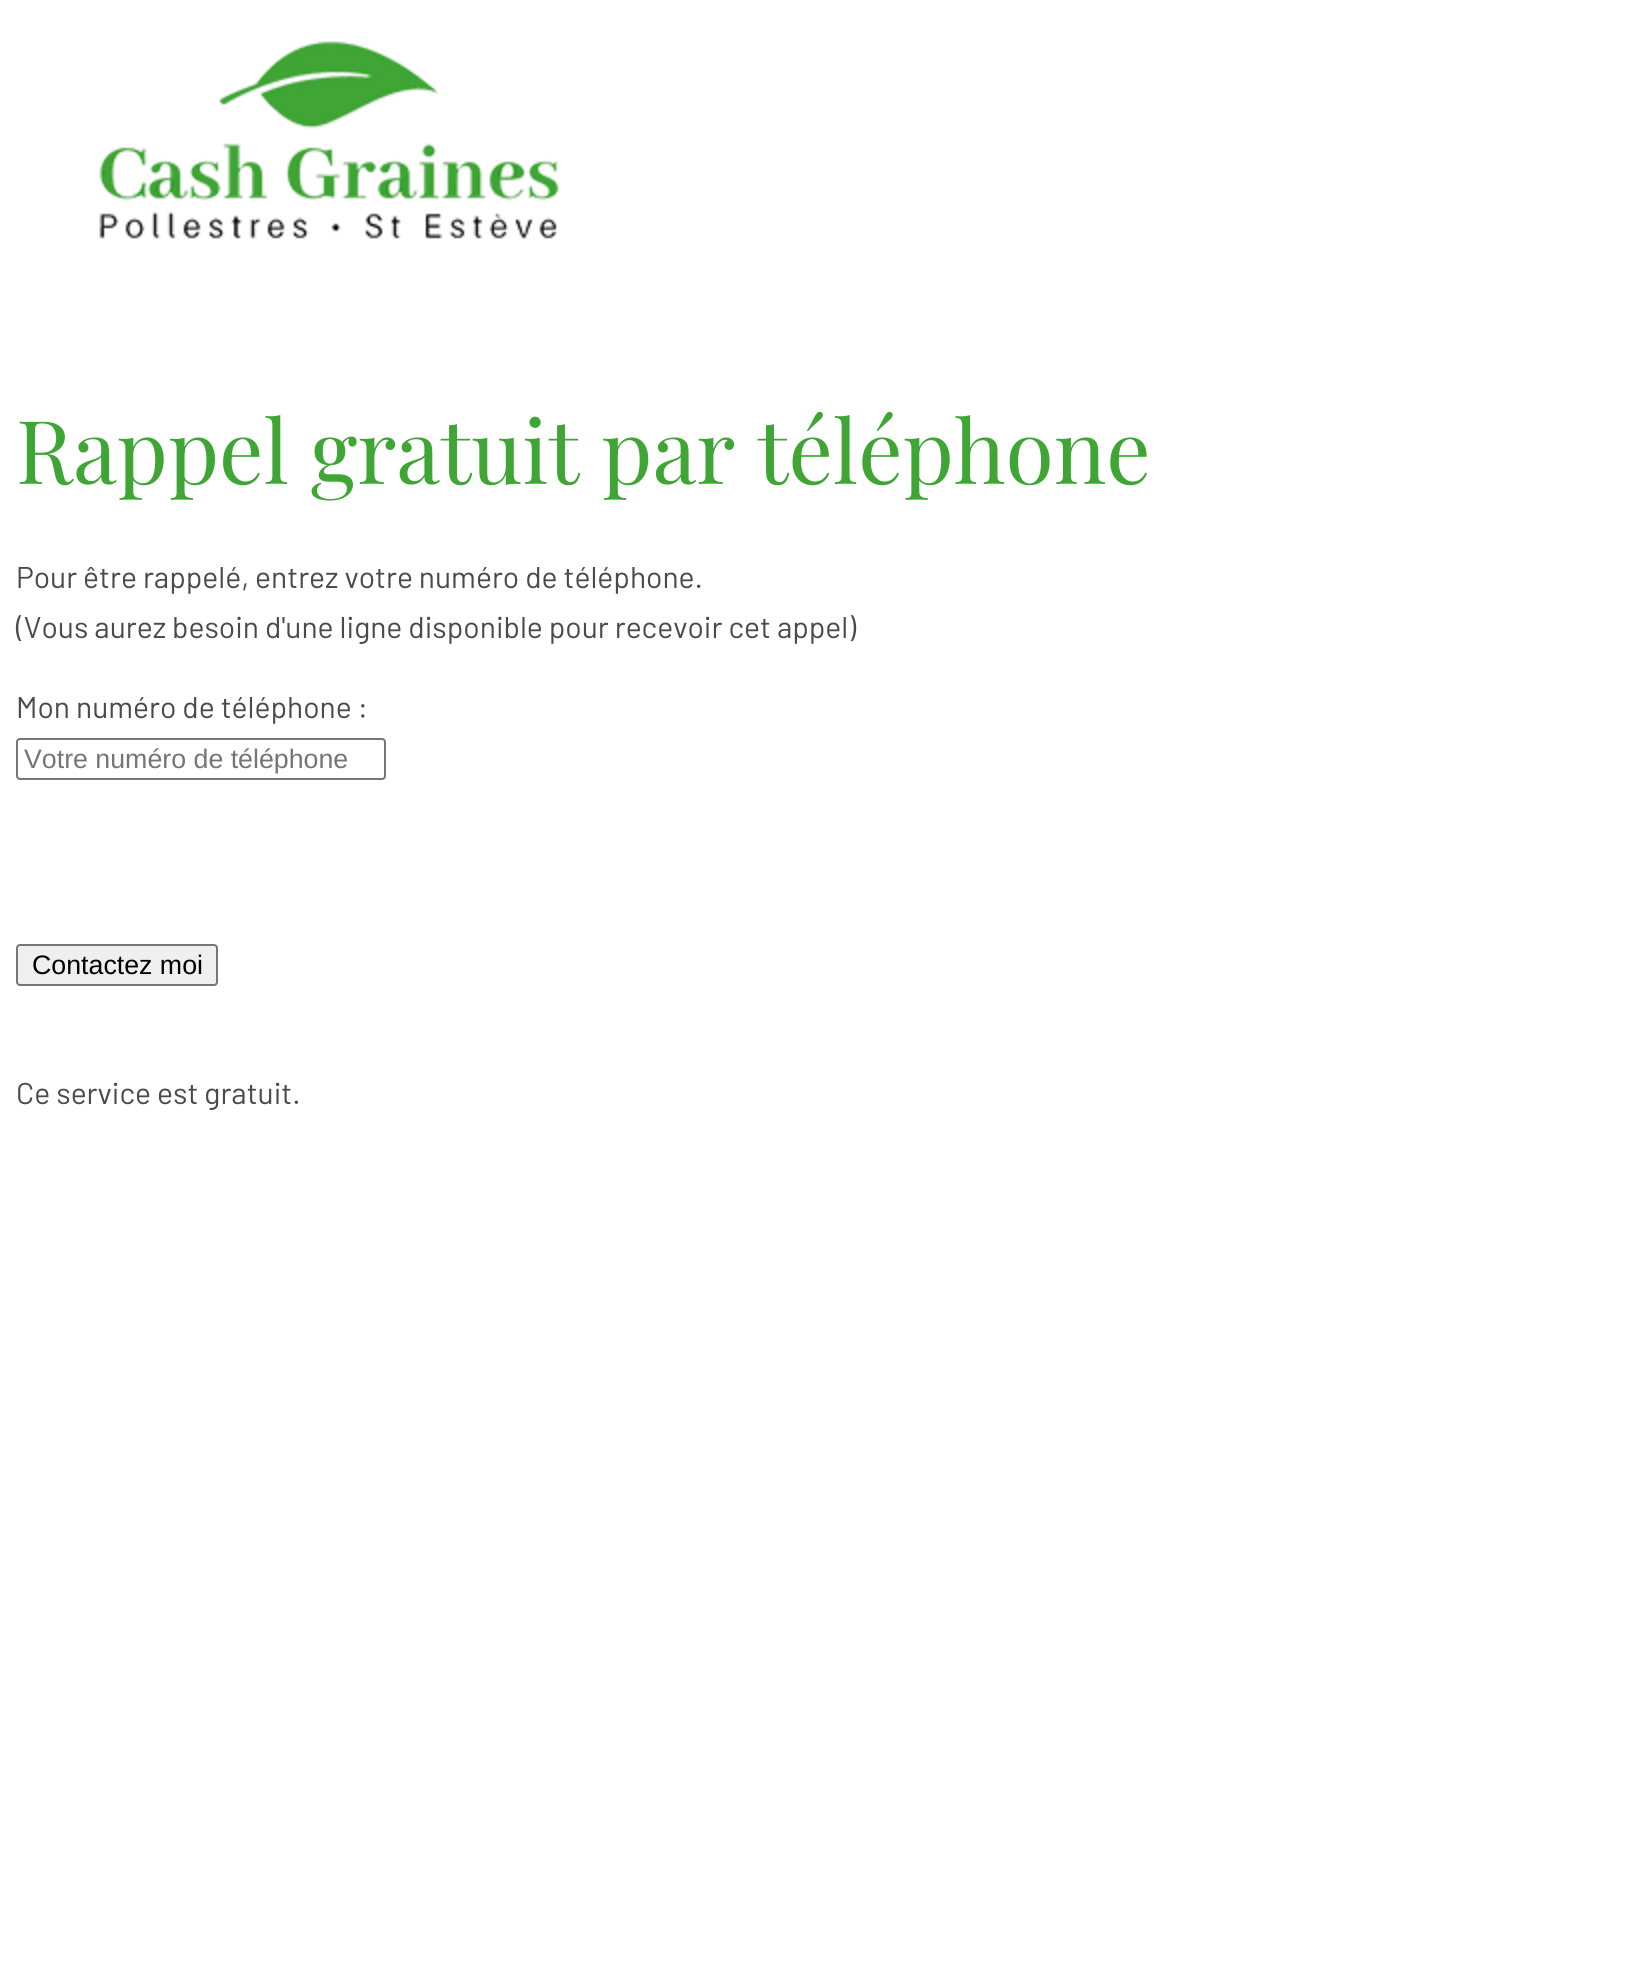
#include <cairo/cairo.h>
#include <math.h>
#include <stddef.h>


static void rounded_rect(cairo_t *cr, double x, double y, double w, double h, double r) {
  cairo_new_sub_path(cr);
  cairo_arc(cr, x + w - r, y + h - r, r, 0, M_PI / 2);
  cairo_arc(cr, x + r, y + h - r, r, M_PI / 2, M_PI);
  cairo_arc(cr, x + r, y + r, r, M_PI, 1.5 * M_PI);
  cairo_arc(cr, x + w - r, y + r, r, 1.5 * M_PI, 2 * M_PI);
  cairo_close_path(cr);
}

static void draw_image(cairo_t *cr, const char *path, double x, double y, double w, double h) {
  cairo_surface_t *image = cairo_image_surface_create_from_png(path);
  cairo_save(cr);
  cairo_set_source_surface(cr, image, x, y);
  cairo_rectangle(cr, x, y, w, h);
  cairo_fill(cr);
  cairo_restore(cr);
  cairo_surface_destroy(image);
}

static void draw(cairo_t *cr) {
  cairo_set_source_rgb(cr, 1, 1, 1);
  cairo_paint(cr);
  draw_image(cr, "images/1.png", 99, 41, 460, 198);
  rounded_rect(cr, 17, 739, 368, 40, 3);
  cairo_set_source_rgb(cr, 118 / 255.0, 118 / 255.0, 118 / 255.0);
  cairo_stroke(cr);
  cairo_set_source_rgb(cr, 239 / 255.0, 239 / 255.0, 239 / 255.0);
  rounded_rect(cr, 17, 945, 200, 40, 3);
  cairo_fill_preserve(cr);
  cairo_set_source_rgb(cr, 118 / 255.0, 118 / 255.0, 118 / 255.0);
  cairo_stroke(cr);
  cairo_select_font_face(cr, "Playfair Display", CAIRO_FONT_SLANT_NORMAL, CAIRO_FONT_WEIGHT_NORMAL);
  cairo_set_font_size(cr, 88);
  cairo_set_source_rgb(cr, 63 / 255.0, 165 / 255.0, 53 / 255.0);
  cairo_move_to(cr, 16, 484);
  cairo_show_text(cr, "Rappel gratuit par téléphone");
  cairo_select_font_face(cr, "Barlow", CAIRO_FONT_SLANT_NORMAL, CAIRO_FONT_WEIGHT_NORMAL);
  cairo_set_font_size(cr, 30);
  cairo_set_source_rgb(cr, 75 / 255.0, 74 / 255.0, 74 / 255.0);
  cairo_move_to(cr, 16, 588);
  cairo_show_text(cr, "Pour être rappelé, entrez votre numéro de téléphone.");
  cairo_move_to(cr, 16, 638);
  cairo_show_text(cr, "(Vous aurez besoin d'une ligne disponible pour recevoir cet appel)");
  cairo_move_to(cr, 16, 718);
  cairo_show_text(cr, "Mon numéro de téléphone :");
  cairo_select_font_face(cr, "Liberation Sans", CAIRO_FONT_SLANT_NORMAL, CAIRO_FONT_WEIGHT_NORMAL);
  cairo_set_font_size(cr, 26.75);
  cairo_set_source_rgb(cr, 117 / 255.0, 117 / 255.0, 117 / 255.0);
  cairo_move_to(cr, 24, 768);
  cairo_show_text(cr, "Votre numéro de téléphone");
  cairo_set_source_rgb(cr, 0, 0, 0);
  cairo_move_to(cr, 32, 974);
  cairo_show_text(cr, "Contactez moi");
  cairo_select_font_face(cr, "Barlow", CAIRO_FONT_SLANT_NORMAL, CAIRO_FONT_WEIGHT_NORMAL);
  cairo_set_font_size(cr, 30);
  cairo_set_source_rgb(cr, 75 / 255.0, 74 / 255.0, 74 / 255.0);
  cairo_move_to(cr, 16, 1104);
  cairo_show_text(cr, "Ce service est gratuit.");
}

int main(void) {
  cairo_surface_t *surface = cairo_image_surface_create(CAIRO_FORMAT_RGB24, 1639, 1980);
  cairo_t *cr = cairo_create(surface);
  cairo_font_options_t *options = cairo_font_options_create();
  cairo_font_options_set_hint_metrics(options, CAIRO_HINT_METRICS_OFF);
  cairo_font_options_set_hint_style(options, CAIRO_HINT_STYLE_NONE);
  cairo_set_font_options(cr, options);
  cairo_set_miter_limit(cr, 4);
  draw(cr);
  cairo_surface_write_to_png(surface, "out.png");
  cairo_font_options_destroy(options);
  cairo_destroy(cr);
  cairo_surface_destroy(surface);
  return 0;
}
